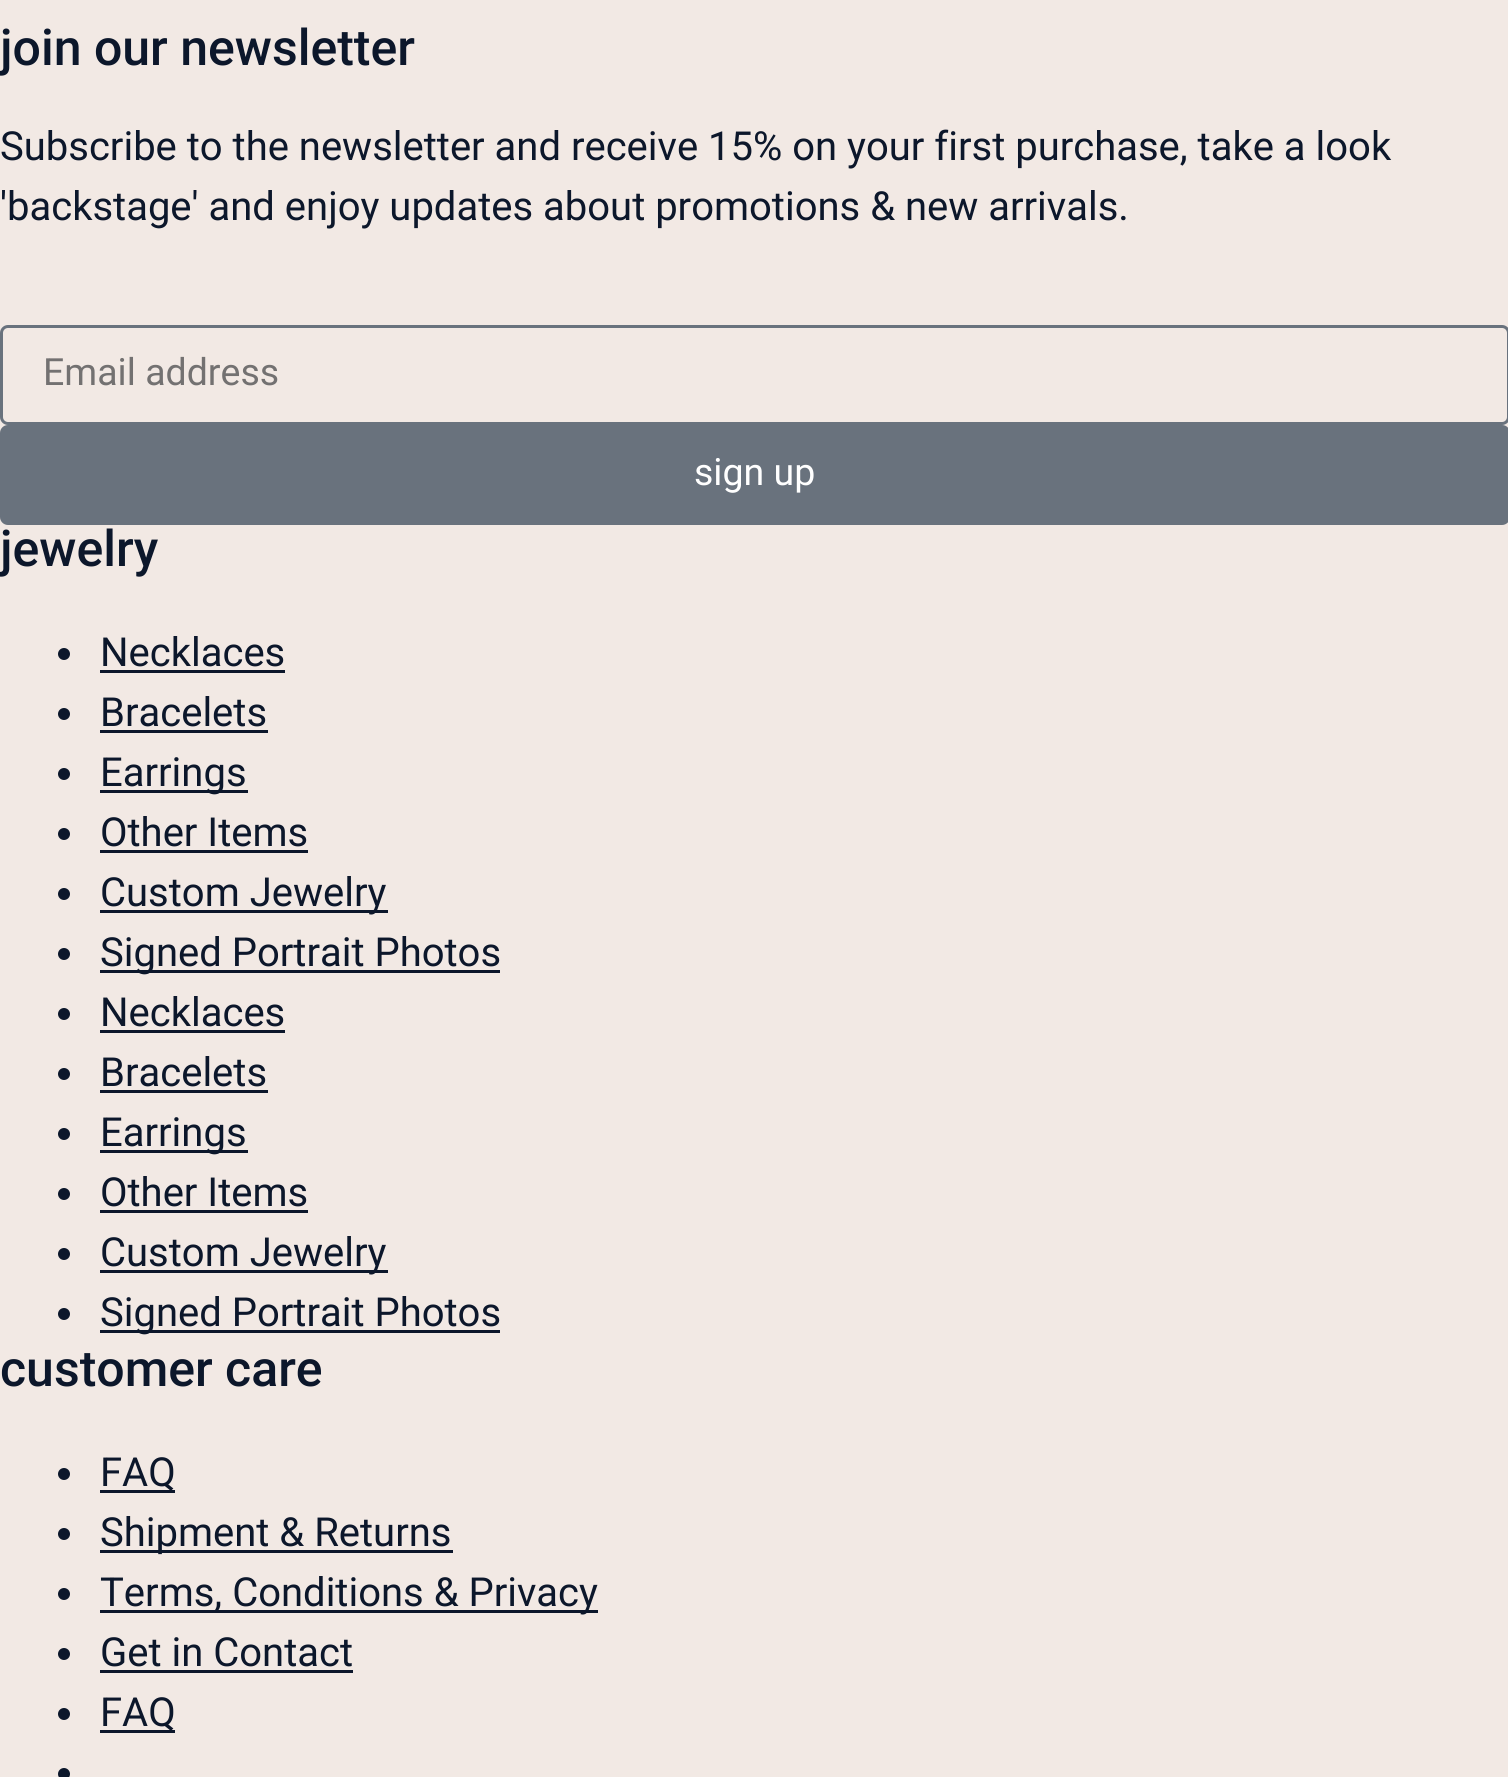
#include <cairo/cairo.h>
#include <math.h>
#include <stddef.h>


static void rounded_rect(cairo_t *cr, double x, double y, double w, double h, double r) {
  cairo_new_sub_path(cr);
  cairo_arc(cr, x + w - r, y + h - r, r, 0, M_PI / 2);
  cairo_arc(cr, x + r, y + h - r, r, M_PI / 2, M_PI);
  cairo_arc(cr, x + r, y + r, r, M_PI, 1.5 * M_PI);
  cairo_arc(cr, x + w - r, y + r, r, 1.5 * M_PI, 2 * M_PI);
  cairo_close_path(cr);
}

static void draw(cairo_t *cr) {
  cairo_set_source_rgb(cr, 242 / 255.0, 233 / 255.0, 228 / 255.0);
  cairo_paint(cr);
  rounded_rect(cr, 1.5, 326.5, 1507, 97, 6.5);
  cairo_set_source_rgb(cr, 105 / 255.0, 114 / 255.0, 125 / 255.0);
  cairo_set_line_width(cr, 3);
  cairo_stroke(cr);
  rounded_rect(cr, 0, 425, 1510, 100, 8);
  cairo_fill(cr);
  cairo_set_source_rgb(cr, 12 / 255.0, 23 / 255.0, 43 / 255.0);
  cairo_arc(cr, 64, 654, 6, 0, 2 * M_PI);
  cairo_fill(cr);
  cairo_rectangle(cr, 100, 670, 185, 3);
  cairo_fill(cr);
  cairo_arc(cr, 64, 714, 6, 0, 2 * M_PI);
  cairo_fill(cr);
  cairo_rectangle(cr, 100, 730, 168, 3);
  cairo_fill(cr);
  cairo_arc(cr, 64, 774, 6, 0, 2 * M_PI);
  cairo_fill(cr);
  cairo_rectangle(cr, 100, 790, 148, 3);
  cairo_fill(cr);
  cairo_arc(cr, 64, 834, 6, 0, 2 * M_PI);
  cairo_fill(cr);
  cairo_rectangle(cr, 100, 850, 208, 3);
  cairo_fill(cr);
  cairo_arc(cr, 64, 894, 6, 0, 2 * M_PI);
  cairo_fill(cr);
  cairo_rectangle(cr, 100, 910, 288, 3);
  cairo_fill(cr);
  cairo_arc(cr, 64, 954, 6, 0, 2 * M_PI);
  cairo_fill(cr);
  cairo_rectangle(cr, 100, 970, 400, 3);
  cairo_fill(cr);
  cairo_arc(cr, 64, 1014, 6, 0, 2 * M_PI);
  cairo_fill(cr);
  cairo_rectangle(cr, 100, 1030, 185, 3);
  cairo_fill(cr);
  cairo_arc(cr, 64, 1074, 6, 0, 2 * M_PI);
  cairo_fill(cr);
  cairo_rectangle(cr, 100, 1090, 168, 3);
  cairo_fill(cr);
  cairo_arc(cr, 64, 1134, 6, 0, 2 * M_PI);
  cairo_fill(cr);
  cairo_rectangle(cr, 100, 1150, 148, 3);
  cairo_fill(cr);
  cairo_arc(cr, 64, 1194, 6, 0, 2 * M_PI);
  cairo_fill(cr);
  cairo_rectangle(cr, 100, 1210, 208, 3);
  cairo_fill(cr);
  cairo_arc(cr, 64, 1254, 6, 0, 2 * M_PI);
  cairo_fill(cr);
  cairo_rectangle(cr, 100, 1270, 288, 3);
  cairo_fill(cr);
  cairo_arc(cr, 64, 1314, 6, 0, 2 * M_PI);
  cairo_fill(cr);
  cairo_rectangle(cr, 100, 1330, 400, 3);
  cairo_fill(cr);
  cairo_arc(cr, 64, 1474, 6, 0, 2 * M_PI);
  cairo_fill(cr);
  cairo_rectangle(cr, 100, 1490, 75, 3);
  cairo_fill(cr);
  cairo_arc(cr, 64, 1534, 6, 0, 2 * M_PI);
  cairo_fill(cr);
  cairo_rectangle(cr, 100, 1550, 353, 3);
  cairo_fill(cr);
  cairo_arc(cr, 64, 1594, 6, 0, 2 * M_PI);
  cairo_fill(cr);
  cairo_rectangle(cr, 100, 1610, 498, 3);
  cairo_fill(cr);
  cairo_arc(cr, 64, 1654, 6, 0, 2 * M_PI);
  cairo_fill(cr);
  cairo_rectangle(cr, 100, 1670, 253, 3);
  cairo_fill(cr);
  cairo_arc(cr, 64, 1714, 6, 0, 2 * M_PI);
  cairo_fill(cr);
  cairo_rectangle(cr, 100, 1730, 75, 3);
  cairo_fill(cr);
  cairo_arc(cr, 64, 1774, 6, 0, 2 * M_PI);
  cairo_fill(cr);
  cairo_select_font_face(cr, "Roboto Medium", CAIRO_FONT_SLANT_NORMAL, CAIRO_FONT_WEIGHT_NORMAL);
  cairo_set_font_size(cr, 50);
  cairo_move_to(cr, 0, 65);
  cairo_show_text(cr, "join our newsletter");
  cairo_select_font_face(cr, "Roboto", CAIRO_FONT_SLANT_NORMAL, CAIRO_FONT_WEIGHT_NORMAL);
  cairo_set_font_size(cr, 40);
  cairo_move_to(cr, 0, 160);
  cairo_show_text(cr, "Subscribe to the newsletter and receive 15% on your first purchase, take a look");
  cairo_move_to(cr, 0, 220);
  cairo_show_text(cr, "'backstage' and enjoy updates about promotions & new arrivals.");
  cairo_set_font_size(cr, 37.5);
  cairo_set_source_rgb(cr, 115 / 255.0, 113 / 255.0, 113 / 255.0);
  cairo_move_to(cr, 43, 385);
  cairo_show_text(cr, "Email address");
  cairo_set_source_rgb(cr, 1, 1, 1);
  cairo_move_to(cr, 694, 485);
  cairo_show_text(cr, "sign up");
  cairo_select_font_face(cr, "Roboto Medium", CAIRO_FONT_SLANT_NORMAL, CAIRO_FONT_WEIGHT_NORMAL);
  cairo_set_font_size(cr, 50);
  cairo_set_source_rgb(cr, 12 / 255.0, 23 / 255.0, 43 / 255.0);
  cairo_move_to(cr, 0, 566);
  cairo_show_text(cr, "jewelry");
  cairo_select_font_face(cr, "Roboto", CAIRO_FONT_SLANT_NORMAL, CAIRO_FONT_WEIGHT_NORMAL);
  cairo_set_font_size(cr, 40);
  cairo_move_to(cr, 100, 666);
  cairo_show_text(cr, "Necklaces");
  cairo_move_to(cr, 100, 726);
  cairo_show_text(cr, "Bracelets");
  cairo_move_to(cr, 100, 786);
  cairo_show_text(cr, "Earrings");
  cairo_move_to(cr, 100, 846);
  cairo_show_text(cr, "Other Items");
  cairo_move_to(cr, 100, 906);
  cairo_show_text(cr, "Custom Jewelry");
  cairo_move_to(cr, 100, 966);
  cairo_show_text(cr, "Signed Portrait Photos");
  cairo_move_to(cr, 100, 1026);
  cairo_show_text(cr, "Necklaces");
  cairo_move_to(cr, 100, 1086);
  cairo_show_text(cr, "Bracelets");
  cairo_move_to(cr, 100, 1146);
  cairo_show_text(cr, "Earrings");
  cairo_move_to(cr, 100, 1206);
  cairo_show_text(cr, "Other Items");
  cairo_move_to(cr, 100, 1266);
  cairo_show_text(cr, "Custom Jewelry");
  cairo_move_to(cr, 100, 1326);
  cairo_show_text(cr, "Signed Portrait Photos");
  cairo_select_font_face(cr, "Roboto Medium", CAIRO_FONT_SLANT_NORMAL, CAIRO_FONT_WEIGHT_NORMAL);
  cairo_set_font_size(cr, 50);
  cairo_move_to(cr, 0, 1386);
  cairo_show_text(cr, "customer care");
  cairo_select_font_face(cr, "Roboto", CAIRO_FONT_SLANT_NORMAL, CAIRO_FONT_WEIGHT_NORMAL);
  cairo_set_font_size(cr, 40);
  cairo_move_to(cr, 100, 1486);
  cairo_show_text(cr, "FAQ");
  cairo_move_to(cr, 100, 1546);
  cairo_show_text(cr, "Shipment & Returns");
  cairo_move_to(cr, 100, 1606);
  cairo_show_text(cr, "Terms, Conditions & Privacy");
  cairo_move_to(cr, 100, 1666);
  cairo_show_text(cr, "Get in Contact");
  cairo_move_to(cr, 100, 1726);
  cairo_show_text(cr, "FAQ");
}

int main(void) {
  cairo_surface_t *surface = cairo_image_surface_create(CAIRO_FORMAT_RGB24, 1508, 1777);
  cairo_t *cr = cairo_create(surface);
  cairo_font_options_t *options = cairo_font_options_create();
  cairo_font_options_set_hint_metrics(options, CAIRO_HINT_METRICS_OFF);
  cairo_font_options_set_hint_style(options, CAIRO_HINT_STYLE_NONE);
  cairo_set_font_options(cr, options);
  cairo_set_miter_limit(cr, 4);
  draw(cr);
  cairo_surface_write_to_png(surface, "out.png");
  cairo_font_options_destroy(options);
  cairo_destroy(cr);
  cairo_surface_destroy(surface);
  return 0;
}
